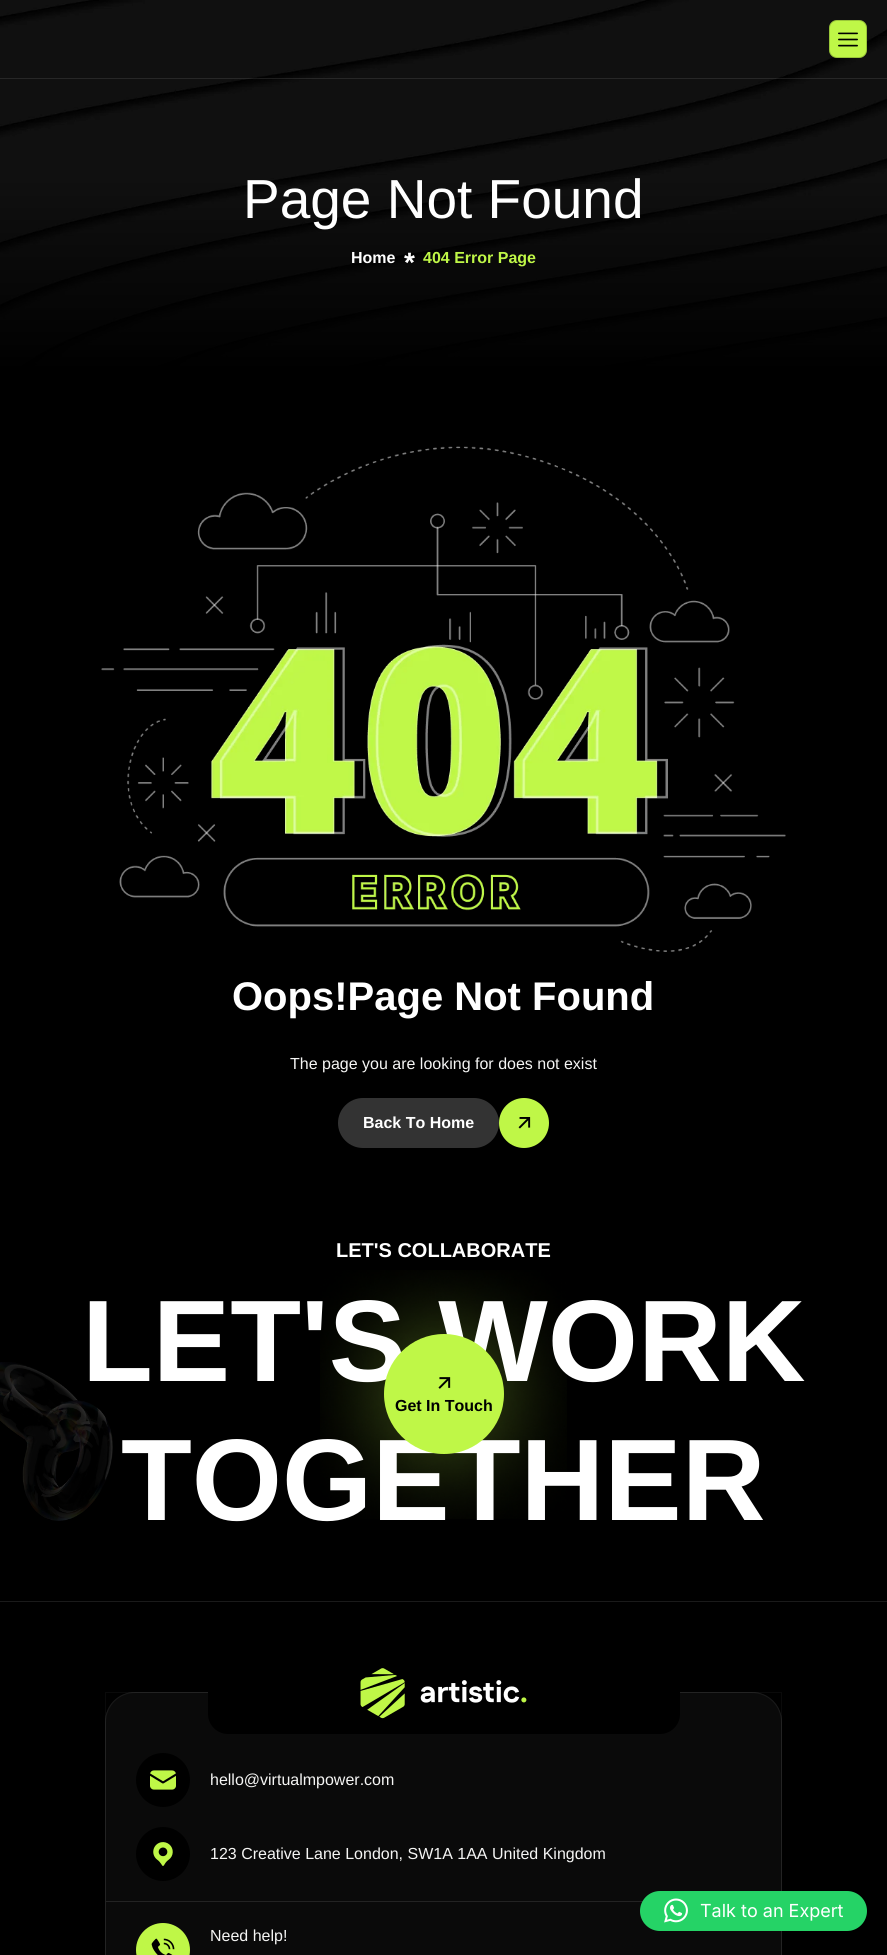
#include <cairo/cairo.h>
#include <math.h>
#include <stddef.h>


static void rounded_rect(cairo_t *cr, double x, double y, double w, double h, double r) {
  cairo_new_sub_path(cr);
  cairo_arc(cr, x + w - r, y + h - r, r, 0, M_PI / 2);
  cairo_arc(cr, x + r, y + h - r, r, M_PI / 2, M_PI);
  cairo_arc(cr, x + r, y + r, r, M_PI, 1.5 * M_PI);
  cairo_arc(cr, x + w - r, y + r, r, 1.5 * M_PI, 2 * M_PI);
  cairo_close_path(cr);
}

static void draw_image(cairo_t *cr, const char *path, double x, double y, double w, double h) {
  cairo_surface_t *image = cairo_image_surface_create_from_png(path);
  cairo_save(cr);
  cairo_set_source_surface(cr, image, x, y);
  cairo_rectangle(cr, x, y, w, h);
  cairo_fill(cr);
  cairo_restore(cr);
  cairo_surface_destroy(image);
}

static void draw(cairo_t *cr) {
  cairo_set_source_rgb(cr, 0, 0, 0);
  cairo_paint(cr);
  draw_image(cr, "images/2.png", 0, 0, 887, 366);
  cairo_set_source_rgba(cr, 1, 1, 1, 0.1);
  cairo_rectangle(cr, 0, 78, 887, 1);
  cairo_fill(cr);
  cairo_set_source_rgb(cr, 191 / 255.0, 247 / 255.0, 71 / 255.0);
  rounded_rect(cr, 829, 20, 38, 38, 8);
  cairo_fill(cr);
  rounded_rect(cr, 829.5, 20.5, 37, 37, 7.5);
  cairo_set_source_rgba(cr, 0, 0, 0, 0.2);
  cairo_set_line_width(cr, 1);
  cairo_stroke(cr);
  draw_image(cr, "images/1.png", 838, 32, 20, 15);
  draw_image(cr, "images/3.png", 101, 446, 685, 506);
  cairo_set_source_rgb(cr, 191 / 255.0, 247 / 255.0, 71 / 255.0);
  cairo_arc(cr, 524, 1123, 25, 0, 2 * M_PI);
  cairo_fill(cr);
  draw_image(cr, "images/4.png", 518, 1117, 13, 12);
  draw_image(cr, "images/5.png", 0, 1362, 113, 159);
  draw_image(cr, "images/6.png", 320, 1270, 247, 249);
  cairo_set_source_rgb(cr, 26 / 255.0, 26 / 255.0, 26 / 255.0);
  cairo_rectangle(cr, 0, 1601, 887, 1);
  cairo_fill(cr);
  rounded_rect(cr, 105.5, 1692.5, 676, 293, 29.5);
  cairo_stroke(cr);
  cairo_set_source_rgba(cr, 27 / 255.0, 27 / 255.0, 27 / 255.0, 0.4);
  rounded_rect(cr, 105, 1692, 677, 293, 30);
  cairo_fill(cr);
  cairo_rectangle(cr, 105.5, 1692.5, 676, 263);
  cairo_set_source_rgba(cr, 1, 1, 1, 0.04);
  cairo_stroke(cr);
  cairo_set_source_rgb(cr, 0, 0, 0);
  rounded_rect(cr, 208, 1653, 472, 81, 20);
  cairo_fill(cr);
  draw_image(cr, "images/8.png", 360, 1668, 167, 51);
  cairo_arc(cr, 163, 1780, 27, 0, 2 * M_PI);
  cairo_fill(cr);
  draw_image(cr, "images/9.png", 150, 1770, 26, 20);
  cairo_arc(cr, 163, 1854, 27, 0, 2 * M_PI);
  cairo_fill(cr);
  draw_image(cr, "images/10.png", 153, 1842, 20, 24);
  cairo_set_source_rgb(cr, 35 / 255.0, 35 / 255.0, 35 / 255.0);
  cairo_rectangle(cr, 106, 1901, 537, 1);
  cairo_fill(cr);
  cairo_set_source_rgb(cr, 191 / 255.0, 247 / 255.0, 71 / 255.0);
  cairo_arc(cr, 163, 1950, 27, 0, 2 * M_PI);
  cairo_fill(cr);
  draw_image(cr, "images/11.png", 151, 1938, 24, 17);
  cairo_set_source_rgb(cr, 37 / 255.0, 211 / 255.0, 102 / 255.0);
  rounded_rect(cr, 640, 1891, 227, 40, 20);
  cairo_fill(cr);
  draw_image(cr, "images/12.png", 664, 1898, 24, 25);
  cairo_select_font_face(cr, "Liberation Sans", CAIRO_FONT_SLANT_NORMAL, CAIRO_FONT_WEIGHT_NORMAL);
  cairo_set_font_size(cr, 55);
  cairo_set_source_rgb(cr, 1, 1, 1);
  cairo_move_to(cr, 243, 218);
  cairo_show_text(cr, "Page Not Found");
  cairo_select_font_face(cr, "Liberation Sans", CAIRO_FONT_SLANT_NORMAL, CAIRO_FONT_WEIGHT_BOLD);
  cairo_set_font_size(cr, 16);
  cairo_move_to(cr, 351, 263);
  cairo_show_text(cr, "Home");
  cairo_set_font_size(cr, 28);
  cairo_move_to(cr, 404, 272);
  cairo_show_text(cr, "*");
  cairo_set_font_size(cr, 16);
  cairo_set_source_rgb(cr, 191 / 255.0, 247 / 255.0, 71 / 255.0);
  cairo_move_to(cr, 423, 263);
  cairo_show_text(cr, "404 Error Page");
  cairo_set_font_size(cr, 40);
  cairo_set_source_rgb(cr, 1, 1, 1);
  cairo_move_to(cr, 232, 1010);
  cairo_show_text(cr, "Oops!Page Not Found");
  cairo_select_font_face(cr, "Liberation Sans", CAIRO_FONT_SLANT_NORMAL, CAIRO_FONT_WEIGHT_NORMAL);
  cairo_set_font_size(cr, 16);
  cairo_set_source_rgb(cr, 245 / 255.0, 245 / 255.0, 244 / 255.0);
  cairo_move_to(cr, 290, 1069);
  cairo_show_text(cr, "The page you are looking for does not exist");
  cairo_select_font_face(cr, "Liberation Sans", CAIRO_FONT_SLANT_NORMAL, CAIRO_FONT_WEIGHT_BOLD);
  cairo_set_source_rgb(cr, 1, 1, 1);
  cairo_move_to(cr, 363, 1128);
  cairo_show_text(cr, "Back To Home");
  cairo_set_source_rgba(cr, 1, 1, 1, 0.2);
  rounded_rect(cr, 338, 1098, 161, 50, 25);
  cairo_fill(cr);
  cairo_set_font_size(cr, 20);
  cairo_set_source_rgb(cr, 1, 1, 1);
  cairo_move_to(cr, 336, 1257);
  cairo_show_text(cr, "LET'S COLLABORATE");
  cairo_set_font_size(cr, 116);
  cairo_move_to(cr, 82, 1381);
  cairo_show_text(cr, "LET'S WORK");
  cairo_move_to(cr, 121, 1520);
  cairo_show_text(cr, "TOGETHER");
  cairo_set_source_rgb(cr, 191 / 255.0, 247 / 255.0, 71 / 255.0);
  cairo_new_path(cr);
  cairo_arc(cr, 444, 1394, 60, 0, 2 * M_PI);
  cairo_fill(cr);
  draw_image(cr, "images/7.png", 438, 1377, 13, 12);
  cairo_set_font_size(cr, 16);
  cairo_set_source_rgb(cr, 0, 0, 0);
  cairo_move_to(cr, 395, 1411);
  cairo_show_text(cr, "Get In Touch");
  cairo_select_font_face(cr, "Liberation Sans", CAIRO_FONT_SLANT_NORMAL, CAIRO_FONT_WEIGHT_NORMAL);
  cairo_set_source_rgb(cr, 245 / 255.0, 245 / 255.0, 244 / 255.0);
  cairo_move_to(cr, 210, 1785);
  cairo_show_text(cr, "hello@virtualmpower.com");
  cairo_move_to(cr, 210, 1859);
  cairo_show_text(cr, "123 Creative Lane London, SW1A 1AA United Kingdom");
  cairo_move_to(cr, 210, 1941);
  cairo_show_text(cr, "Need help!");
  cairo_select_font_face(cr, "Inter", CAIRO_FONT_SLANT_NORMAL, CAIRO_FONT_WEIGHT_NORMAL);
  cairo_set_font_size(cr, 18);
  cairo_set_source_rgb(cr, 1, 1, 1);
  cairo_move_to(cr, 700, 1917);
  cairo_show_text(cr, "Talk to an Expert");
}

int main(void) {
  cairo_surface_t *surface = cairo_image_surface_create(CAIRO_FORMAT_RGB24, 887, 1955);
  cairo_t *cr = cairo_create(surface);
  cairo_font_options_t *options = cairo_font_options_create();
  cairo_font_options_set_hint_metrics(options, CAIRO_HINT_METRICS_OFF);
  cairo_font_options_set_hint_style(options, CAIRO_HINT_STYLE_NONE);
  cairo_set_font_options(cr, options);
  cairo_set_miter_limit(cr, 4);
  draw(cr);
  cairo_surface_write_to_png(surface, "out.png");
  cairo_font_options_destroy(options);
  cairo_destroy(cr);
  cairo_surface_destroy(surface);
  return 0;
}
